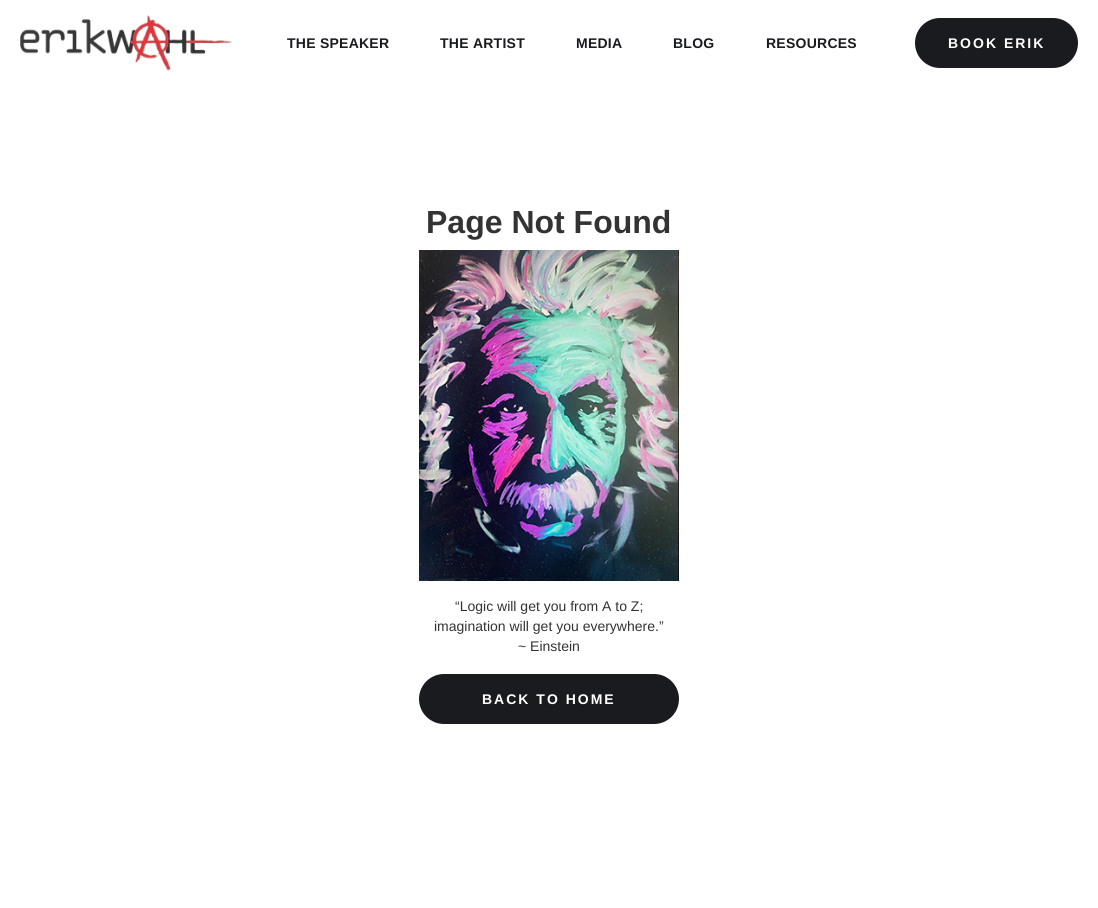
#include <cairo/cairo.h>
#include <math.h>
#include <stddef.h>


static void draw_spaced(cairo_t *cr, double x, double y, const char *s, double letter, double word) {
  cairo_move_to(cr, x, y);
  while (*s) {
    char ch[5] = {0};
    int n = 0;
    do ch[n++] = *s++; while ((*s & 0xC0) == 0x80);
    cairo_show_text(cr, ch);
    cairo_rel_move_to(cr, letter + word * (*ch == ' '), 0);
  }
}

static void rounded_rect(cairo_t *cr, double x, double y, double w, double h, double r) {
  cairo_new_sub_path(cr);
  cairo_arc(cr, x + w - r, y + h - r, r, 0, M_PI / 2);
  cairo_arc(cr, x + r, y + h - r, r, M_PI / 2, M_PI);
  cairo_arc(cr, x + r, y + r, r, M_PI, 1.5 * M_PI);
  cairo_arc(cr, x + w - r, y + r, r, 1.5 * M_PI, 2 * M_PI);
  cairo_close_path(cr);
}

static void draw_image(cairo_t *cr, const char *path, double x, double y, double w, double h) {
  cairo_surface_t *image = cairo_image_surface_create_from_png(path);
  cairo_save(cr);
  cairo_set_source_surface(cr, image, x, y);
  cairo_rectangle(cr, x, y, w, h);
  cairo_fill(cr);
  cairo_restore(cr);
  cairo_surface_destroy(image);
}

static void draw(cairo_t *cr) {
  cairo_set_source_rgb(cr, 1, 1, 1);
  cairo_paint(cr);
  draw_image(cr, "images/1.png", 20, 15, 212, 56);
  cairo_set_source_rgb(cr, 26 / 255.0, 27 / 255.0, 31 / 255.0);
  rounded_rect(cr, 915, 18, 163, 50, 25);
  cairo_fill(cr);
  draw_image(cr, "images/2.png", 419, 250, 260, 331);
  rounded_rect(cr, 419, 674, 260, 50, 25);
  cairo_fill(cr);
  cairo_select_font_face(cr, "Liberation Sans", CAIRO_FONT_SLANT_NORMAL, CAIRO_FONT_WEIGHT_BOLD);
  cairo_set_font_size(cr, 14);
  draw_spaced(cr, 287, 48, "THE SPEAKER", 0.25, 0);
  draw_spaced(cr, 440, 48, "THE ARTIST", 0.25, 0);
  draw_spaced(cr, 576, 48, "MEDIA", 0.25, 0);
  draw_spaced(cr, 673, 48, "BLOG", 0.25, 0);
  draw_spaced(cr, 766, 48, "RESOURCES", 0.25, 0);
  cairo_set_source_rgb(cr, 1, 1, 1);
  draw_spaced(cr, 948, 48, "BOOK ERIK", 2, 0);
  cairo_set_font_size(cr, 32);
  cairo_set_source_rgb(cr, 51 / 255.0, 51 / 255.0, 51 / 255.0);
  cairo_move_to(cr, 426, 233);
  cairo_show_text(cr, "Page Not Found");
  cairo_select_font_face(cr, "Liberation Sans", CAIRO_FONT_SLANT_NORMAL, CAIRO_FONT_WEIGHT_NORMAL);
  cairo_set_font_size(cr, 14);
  cairo_move_to(cr, 455, 611);
  cairo_show_text(cr, "“Logic will get you from A to Z;");
  cairo_move_to(cr, 434, 631);
  cairo_show_text(cr, "imagination will get you everywhere.”");
  cairo_move_to(cr, 518, 651);
  cairo_show_text(cr, "~ Einstein");
  cairo_select_font_face(cr, "Liberation Sans", CAIRO_FONT_SLANT_NORMAL, CAIRO_FONT_WEIGHT_BOLD);
  cairo_set_source_rgb(cr, 1, 1, 1);
  draw_spaced(cr, 482, 704, "BACK TO HOME", 2, 0);
}

int main(void) {
  cairo_surface_t *surface = cairo_image_surface_create(CAIRO_FORMAT_RGB24, 1098, 908);
  cairo_t *cr = cairo_create(surface);
  cairo_font_options_t *options = cairo_font_options_create();
  cairo_font_options_set_hint_metrics(options, CAIRO_HINT_METRICS_OFF);
  cairo_font_options_set_hint_style(options, CAIRO_HINT_STYLE_NONE);
  cairo_set_font_options(cr, options);
  cairo_set_miter_limit(cr, 4);
  draw(cr);
  cairo_surface_write_to_png(surface, "out.png");
  cairo_font_options_destroy(options);
  cairo_destroy(cr);
  cairo_surface_destroy(surface);
  return 0;
}
